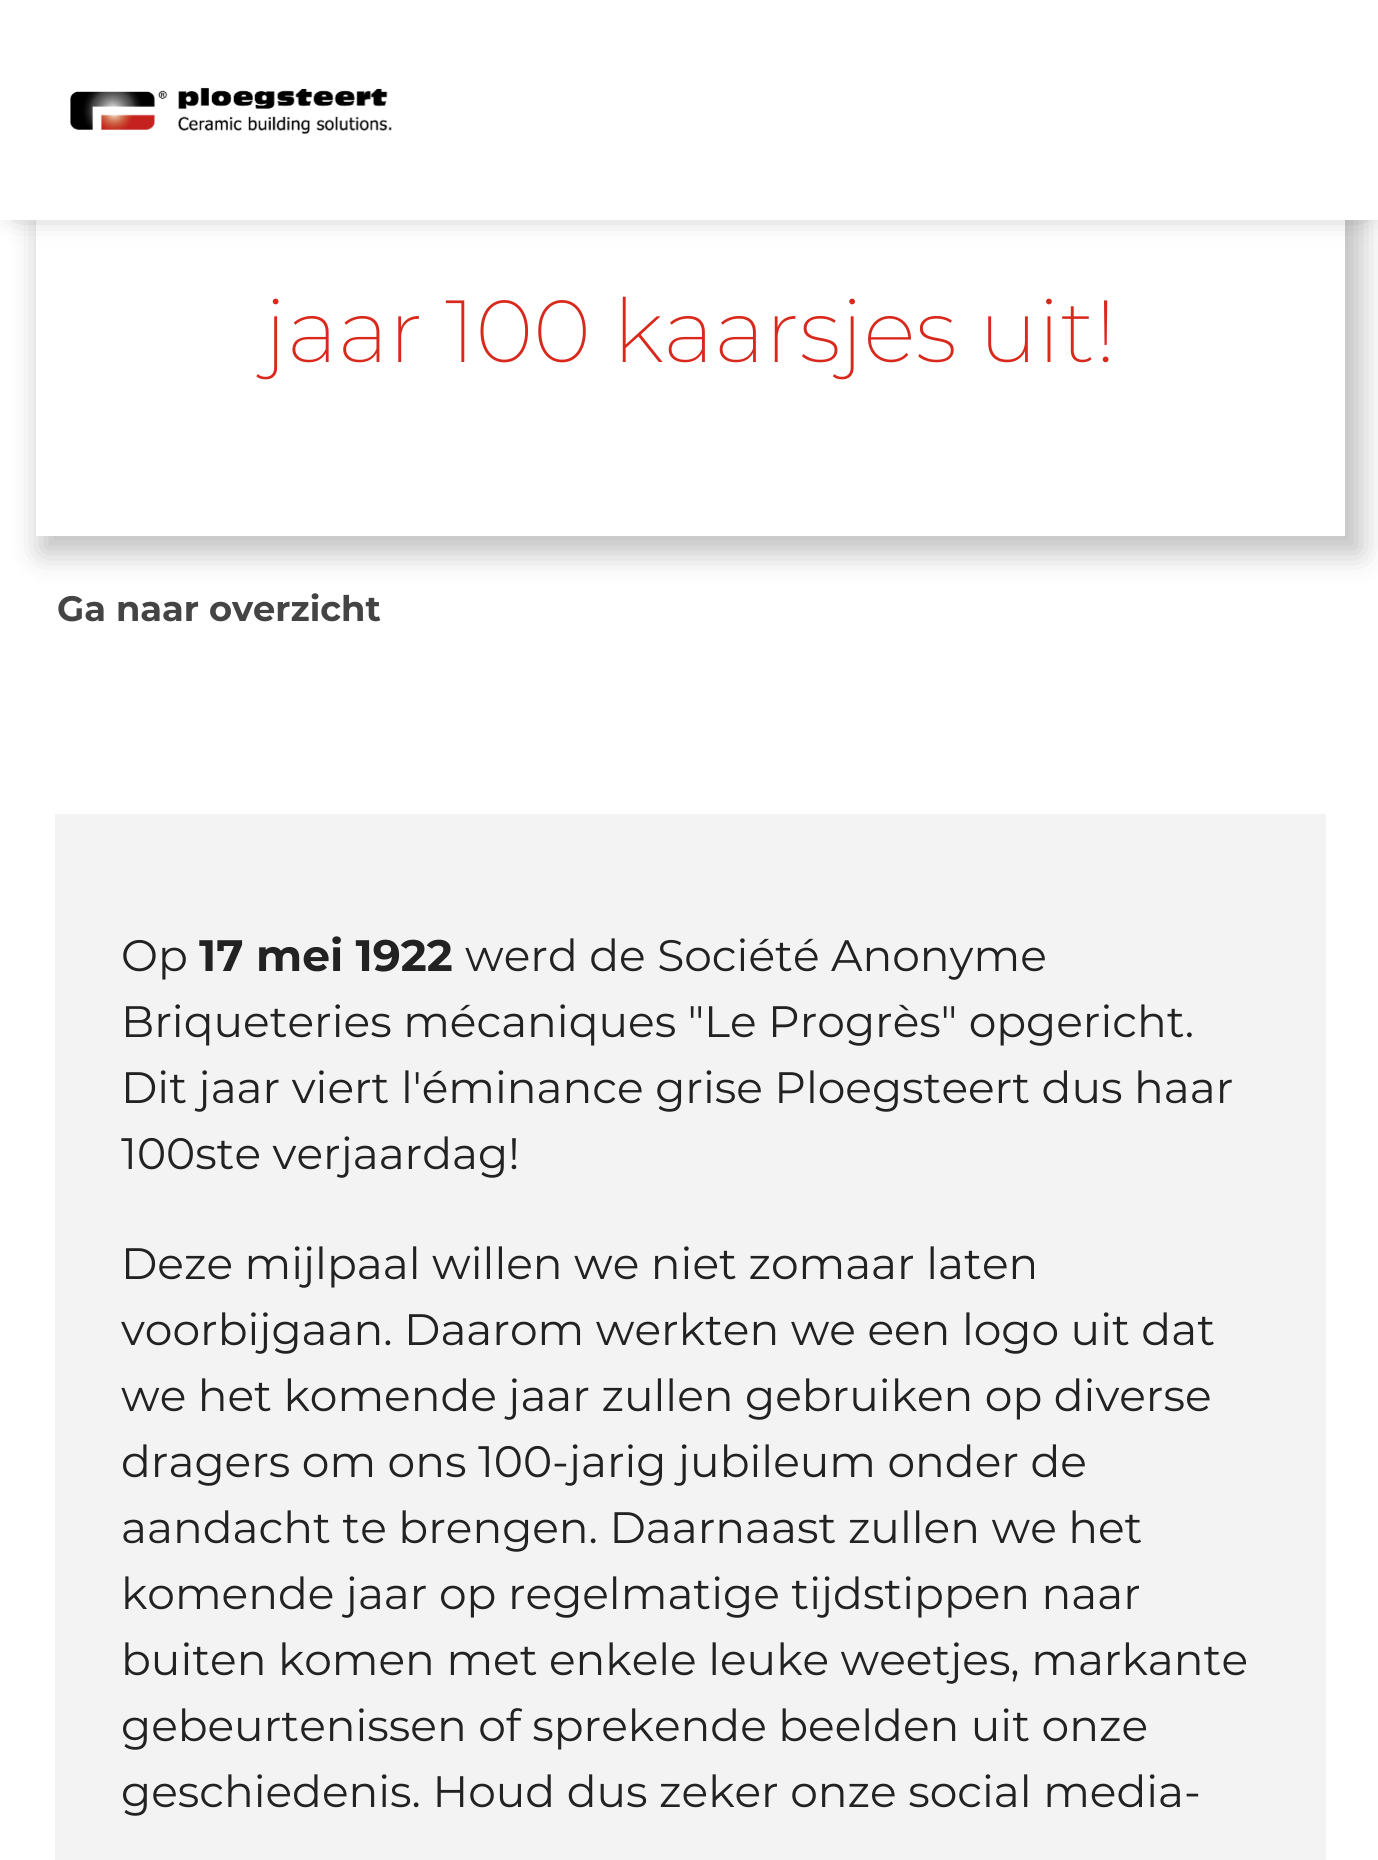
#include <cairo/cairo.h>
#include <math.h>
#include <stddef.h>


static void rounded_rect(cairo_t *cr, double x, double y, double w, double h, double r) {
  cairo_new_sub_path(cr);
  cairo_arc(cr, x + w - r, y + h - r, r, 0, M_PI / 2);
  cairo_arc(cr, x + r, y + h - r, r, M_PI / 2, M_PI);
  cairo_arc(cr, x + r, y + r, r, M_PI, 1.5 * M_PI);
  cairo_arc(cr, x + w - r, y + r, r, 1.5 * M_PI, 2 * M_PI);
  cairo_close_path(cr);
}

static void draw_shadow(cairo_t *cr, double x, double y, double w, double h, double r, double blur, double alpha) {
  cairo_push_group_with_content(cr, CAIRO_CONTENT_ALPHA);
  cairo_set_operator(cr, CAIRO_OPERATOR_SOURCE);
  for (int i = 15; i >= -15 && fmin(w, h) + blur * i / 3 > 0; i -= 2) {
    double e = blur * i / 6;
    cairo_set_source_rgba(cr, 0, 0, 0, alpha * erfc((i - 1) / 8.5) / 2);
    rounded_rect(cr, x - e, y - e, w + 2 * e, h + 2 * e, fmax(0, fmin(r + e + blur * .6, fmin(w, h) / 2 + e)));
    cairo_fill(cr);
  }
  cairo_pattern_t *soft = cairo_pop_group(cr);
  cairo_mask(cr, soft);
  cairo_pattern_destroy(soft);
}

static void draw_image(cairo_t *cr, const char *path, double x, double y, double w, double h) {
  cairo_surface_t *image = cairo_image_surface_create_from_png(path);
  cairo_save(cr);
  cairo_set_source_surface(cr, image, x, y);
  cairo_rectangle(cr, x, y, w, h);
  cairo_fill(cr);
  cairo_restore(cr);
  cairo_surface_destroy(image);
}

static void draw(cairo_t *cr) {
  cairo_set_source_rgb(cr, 1, 1, 1);
  cairo_paint(cr);
  cairo_set_source_rgb(cr, 0, 0, 0);
  draw_shadow(cr, 41, 11, 1320, 542, 0, 15, 0.25);
  cairo_set_source_rgb(cr, 1, 1, 1);
  cairo_rectangle(cr, 36, 220, 1309, 316);
  cairo_fill(cr);
  cairo_set_source_rgb(cr, 0, 0, 0);
  draw_shadow(cr, 17, 19, 1347, 187, 0, 16.5, 0.5);
  cairo_set_source_rgb(cr, 1, 1, 1);
  cairo_rectangle(cr, 0, 0, 1378, 220);
  cairo_fill(cr);
  draw_image(cr, "images/1.png", 70, 87, 322, 48);
  cairo_set_source_rgb(cr, 243 / 255.0, 243 / 255.0, 243 / 255.0);
  cairo_rectangle(cr, 55, 814, 1271, 1046);
  cairo_fill(cr);
  cairo_select_font_face(cr, "Montserrat ExtraLight", CAIRO_FONT_SLANT_NORMAL, CAIRO_FONT_WEIGHT_NORMAL);
  cairo_set_font_size(cr, 88);
  cairo_set_source_rgb(cr, 217 / 255.0, 41 / 255.0, 28 / 255.0);
  cairo_move_to(cr, 264, 362);
  cairo_show_text(cr, "jaar 100 kaarsjes uit!");
  cairo_select_font_face(cr, "Montserrat", CAIRO_FONT_SLANT_NORMAL, CAIRO_FONT_WEIGHT_BOLD);
  cairo_set_font_size(cr, 35.25);
  cairo_set_source_rgb(cr, 68 / 255.0, 68 / 255.0, 68 / 255.0);
  cairo_move_to(cr, 57, 621);
  cairo_show_text(cr, "Ga naar overzicht");
  cairo_select_font_face(cr, "Montserrat", CAIRO_FONT_SLANT_NORMAL, CAIRO_FONT_WEIGHT_NORMAL);
  cairo_set_font_size(cr, 44);
  cairo_set_source_rgb(cr, 34 / 255.0, 34 / 255.0, 34 / 255.0);
  cairo_move_to(cr, 121, 971);
  cairo_show_text(cr, "Op");
  cairo_select_font_face(cr, "Montserrat", CAIRO_FONT_SLANT_NORMAL, CAIRO_FONT_WEIGHT_BOLD);
  cairo_move_to(cr, 199, 971);
  cairo_show_text(cr, "17 mei 1922");
  cairo_select_font_face(cr, "Montserrat", CAIRO_FONT_SLANT_NORMAL, CAIRO_FONT_WEIGHT_NORMAL);
  cairo_move_to(cr, 465, 971);
  cairo_show_text(cr, "werd de Société Anonyme");
  cairo_move_to(cr, 121, 1037);
  cairo_show_text(cr, "Briqueteries mécaniques \"Le Progrès\" opgericht.");
  cairo_move_to(cr, 121, 1103);
  cairo_show_text(cr, "Dit jaar viert l'éminance grise Ploegsteert dus haar");
  cairo_move_to(cr, 121, 1169);
  cairo_show_text(cr, "100ste verjaardag!");
  cairo_move_to(cr, 121, 1279);
  cairo_show_text(cr, "Deze mijlpaal willen we niet zomaar laten");
  cairo_move_to(cr, 121, 1345);
  cairo_show_text(cr, "voorbijgaan. Daarom werkten we een logo uit dat");
  cairo_move_to(cr, 121, 1411);
  cairo_show_text(cr, "we het komende jaar zullen gebruiken op diverse");
  cairo_move_to(cr, 121, 1477);
  cairo_show_text(cr, "dragers om ons 100-jarig jubileum onder de");
  cairo_move_to(cr, 121, 1543);
  cairo_show_text(cr, "aandacht te brengen. Daarnaast zullen we het");
  cairo_move_to(cr, 121, 1609);
  cairo_show_text(cr, "komende jaar op regelmatige tijdstippen naar");
  cairo_move_to(cr, 121, 1675);
  cairo_show_text(cr, "buiten komen met enkele leuke weetjes, markante");
  cairo_move_to(cr, 121, 1741);
  cairo_show_text(cr, "gebeurtenissen of sprekende beelden uit onze");
  cairo_move_to(cr, 121, 1807);
  cairo_show_text(cr, "geschiedenis. Houd dus zeker onze social media-");
}

int main(void) {
  cairo_surface_t *surface = cairo_image_surface_create(CAIRO_FORMAT_RGB24, 1378, 1860);
  cairo_t *cr = cairo_create(surface);
  cairo_font_options_t *options = cairo_font_options_create();
  cairo_font_options_set_hint_metrics(options, CAIRO_HINT_METRICS_OFF);
  cairo_font_options_set_hint_style(options, CAIRO_HINT_STYLE_NONE);
  cairo_set_font_options(cr, options);
  cairo_set_miter_limit(cr, 4);
  draw(cr);
  cairo_surface_write_to_png(surface, "out.png");
  cairo_font_options_destroy(options);
  cairo_destroy(cr);
  cairo_surface_destroy(surface);
  return 0;
}
